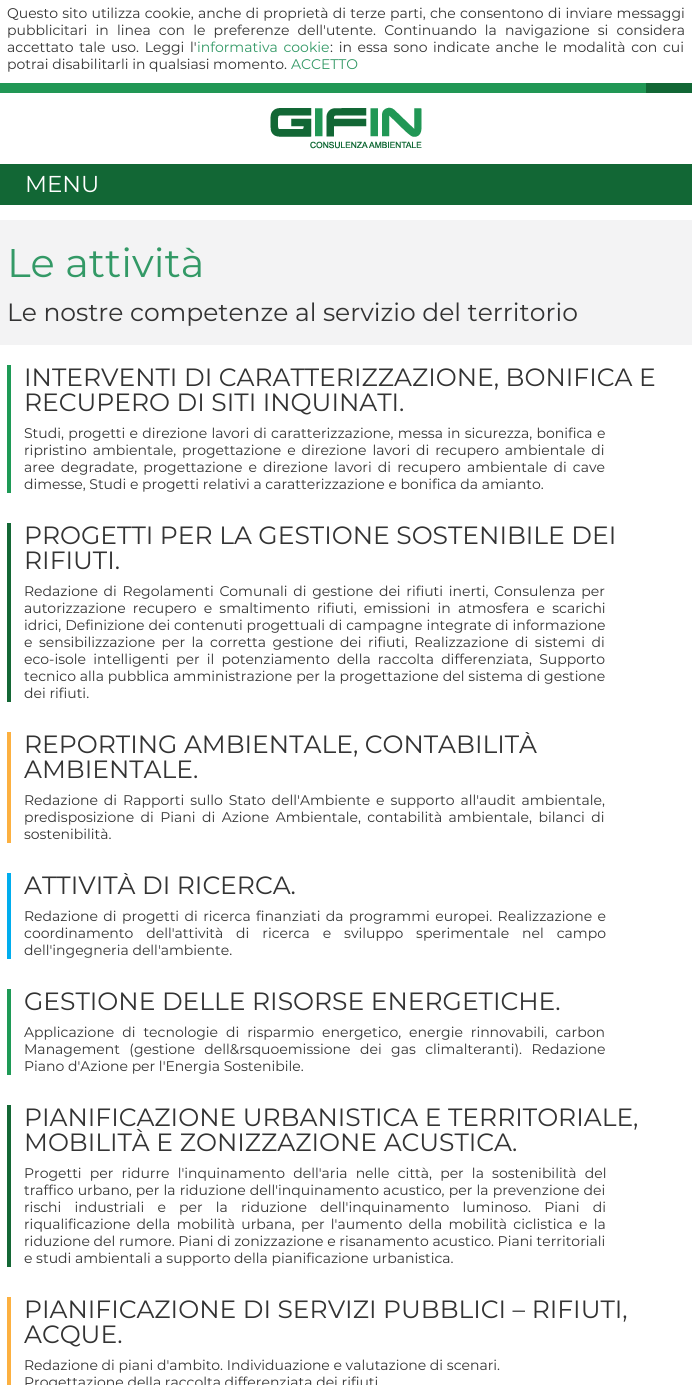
#include <cairo/cairo.h>
#include <math.h>
#include <stddef.h>


static void draw_spaced(cairo_t *cr, double x, double y, const char *s, double letter, double word) {
  cairo_move_to(cr, x, y);
  while (*s) {
    char ch[5] = {0};
    int n = 0;
    do ch[n++] = *s++; while ((*s & 0xC0) == 0x80);
    cairo_show_text(cr, ch);
    cairo_rel_move_to(cr, letter + word * (*ch == ' '), 0);
  }
}

static void draw_image(cairo_t *cr, const char *path, double x, double y, double w, double h) {
  cairo_surface_t *image = cairo_image_surface_create_from_png(path);
  cairo_save(cr);
  cairo_set_source_surface(cr, image, x, y);
  cairo_rectangle(cr, x, y, w, h);
  cairo_fill(cr);
  cairo_restore(cr);
  cairo_surface_destroy(image);
}

static void draw(cairo_t *cr) {
  cairo_set_source_rgb(cr, 1, 1, 1);
  cairo_paint(cr);
  draw_image(cr, "images/1.png", 0, 83, 346, 10);
  draw_image(cr, "images/2.png", 346, 83, 346, 10);
  draw_image(cr, "images/3.png", 270, 107, 152, 42);
  cairo_set_source_rgb(cr, 18 / 255.0, 103 / 255.0, 53 / 255.0);
  cairo_rectangle(cr, 0, 164, 692, 41);
  cairo_fill(cr);
  cairo_set_source_rgb(cr, 243 / 255.0, 243 / 255.0, 244 / 255.0);
  cairo_rectangle(cr, 0, 220, 692, 125);
  cairo_fill(cr);
  cairo_set_source_rgb(cr, 30 / 255.0, 154 / 255.0, 86 / 255.0);
  cairo_rectangle(cr, 7, 365, 4, 128);
  cairo_fill(cr);
  cairo_set_source_rgb(cr, 20 / 255.0, 103 / 255.0, 53 / 255.0);
  cairo_rectangle(cr, 7, 523, 4, 179);
  cairo_fill(cr);
  cairo_set_source_rgb(cr, 252 / 255.0, 176 / 255.0, 64 / 255.0);
  cairo_rectangle(cr, 7, 732, 4, 111);
  cairo_fill(cr);
  cairo_set_source_rgb(cr, 0, 173 / 255.0, 238 / 255.0);
  cairo_rectangle(cr, 7, 873, 4, 86);
  cairo_fill(cr);
  cairo_set_source_rgb(cr, 30 / 255.0, 154 / 255.0, 86 / 255.0);
  cairo_rectangle(cr, 7, 989, 4, 86);
  cairo_fill(cr);
  cairo_set_source_rgb(cr, 20 / 255.0, 103 / 255.0, 53 / 255.0);
  cairo_rectangle(cr, 7, 1105, 4, 162);
  cairo_fill(cr);
  cairo_set_source_rgb(cr, 252 / 255.0, 176 / 255.0, 64 / 255.0);
  cairo_rectangle(cr, 7, 1297, 4, 88);
  cairo_fill(cr);
  cairo_select_font_face(cr, "Montserrat", CAIRO_FONT_SLANT_NORMAL, CAIRO_FONT_WEIGHT_NORMAL);
  cairo_set_font_size(cr, 14);
  cairo_set_source_rgb(cr, 51 / 255.0, 51 / 255.0, 51 / 255.0);
  draw_spaced(cr, 7, 18, "Questo sito utilizza cookie, anche di proprietà di terze parti, che consentono di inviare messaggi", 0, 0.6);
  draw_spaced(cr, 7, 35, "pubblicitari in linea con le preferenze dell'utente. Continuando la navigazione si considera", 0, 4.5);
  draw_spaced(cr, 7, 52, "accettato tale uso. Leggi l'", 0, 2);
  cairo_set_source_rgb(cr, 51 / 255.0, 153 / 255.0, 102 / 255.0);
  draw_spaced(cr, 197, 52, "informativa cookie", 0, 2);
  cairo_set_source_rgb(cr, 51 / 255.0, 51 / 255.0, 51 / 255.0);
  draw_spaced(cr, 330, 52, ": in essa sono indicate anche le modalità con cui", 0, 2);
  cairo_move_to(cr, 7, 69);
  cairo_show_text(cr, "potrai disabilitarli in qualsiasi momento.");
  cairo_set_source_rgb(cr, 51 / 255.0, 153 / 255.0, 102 / 255.0);
  cairo_move_to(cr, 291, 69);
  cairo_show_text(cr, "ACCETTO");
  cairo_set_font_size(cr, 23);
  cairo_set_source_rgb(cr, 1, 1, 1);
  cairo_move_to(cr, 25, 192);
  cairo_show_text(cr, "MENU");
  cairo_set_font_size(cr, 40);
  cairo_set_source_rgb(cr, 51 / 255.0, 153 / 255.0, 102 / 255.0);
  cairo_move_to(cr, 7, 277);
  cairo_show_text(cr, "Le attività");
  cairo_set_font_size(cr, 25);
  cairo_set_source_rgb(cr, 51 / 255.0, 51 / 255.0, 51 / 255.0);
  cairo_move_to(cr, 7, 321);
  cairo_show_text(cr, "Le nostre competenze al servizio del territorio");
  cairo_move_to(cr, 24, 386);
  cairo_show_text(cr, "INTERVENTI DI CARATTERIZZAZIONE, BONIFICA E");
  cairo_move_to(cr, 24, 411);
  cairo_show_text(cr, "RECUPERO DI SITI INQUINATI.");
  cairo_set_font_size(cr, 14);
  draw_spaced(cr, 24, 438, "Studi, progetti e direzione lavori di caratterizzazione, messa in sicurezza, bonifica e", 0, 0.6);
  draw_spaced(cr, 24, 455, "ripristino ambientale, progettazione e direzione lavori di recupero ambientale di", 0, 2.25);
  draw_spaced(cr, 24, 472, "aree degradate, progettazione e direzione lavori di recupero ambientale di cave", 0, 2.4);
  cairo_move_to(cr, 24, 489);
  cairo_show_text(cr, "dimesse, Studi e progetti relativi a caratterizzazione e bonifica da amianto.");
  cairo_set_font_size(cr, 25);
  cairo_move_to(cr, 24, 544);
  cairo_show_text(cr, "PROGETTI PER LA GESTIONE SOSTENIBILE DEI");
  cairo_move_to(cr, 24, 569);
  cairo_show_text(cr, "RIFIUTI.");
  cairo_set_font_size(cr, 14);
  draw_spaced(cr, 24, 596, "Redazione di Regolamenti Comunali di gestione dei rifiuti inerti, Consulenza per", 0, 2);
  draw_spaced(cr, 24, 613, "autorizzazione recupero e smaltimento rifiuti, emissioni in atmosfera e scarichi", 0, 3.5);
  draw_spaced(cr, 24, 630, "idrici, Definizione dei contenuti progettuali di campagne integrate di informazione", 0, 0.25);
  draw_spaced(cr, 24, 647, "e sensibilizzazione per la corretta gestione dei rifiuti, Realizzazione di sistemi di", 0, 2.75);
  draw_spaced(cr, 24, 664, "eco-isole intelligenti per il potenziamento della raccolta differenziata, Supporto", 0, 3.5);
  draw_spaced(cr, 24, 681, "tecnico alla pubblica amministrazione per la progettazione del sistema di gestione", 0, 0.25);
  cairo_move_to(cr, 24, 698);
  cairo_show_text(cr, "dei rifiuti.");
  cairo_save(cr);
  cairo_rectangle(cr, 11, 732, 674, 111);
  cairo_clip(cr);
  cairo_set_font_size(cr, 25);
  cairo_move_to(cr, 24, 753);
  cairo_show_text(cr, "REPORTING AMBIENTALE, CONTABILITÀ");
  cairo_restore(cr);
  cairo_set_font_size(cr, 25);
  cairo_move_to(cr, 24, 778);
  cairo_show_text(cr, "AMBIENTALE.");
  cairo_set_font_size(cr, 14);
  draw_spaced(cr, 24, 805, "Redazione di Rapporti sullo Stato dell'Ambiente e supporto all'audit ambientale,", 0, 2.25);
  draw_spaced(cr, 24, 822, "predisposizione di Piani di Azione Ambientale, contabilità ambientale, bilanci di", 0, 2.75);
  cairo_move_to(cr, 24, 839);
  cairo_show_text(cr, "sostenibilità.");
  cairo_save(cr);
  cairo_rectangle(cr, 11, 873, 674, 86);
  cairo_clip(cr);
  cairo_set_font_size(cr, 25);
  cairo_move_to(cr, 24, 894);
  cairo_show_text(cr, "ATTIVITÀ DI RICERCA.");
  cairo_restore(cr);
  draw_spaced(cr, 24, 921, "Redazione di progetti di ricerca finanziati da programmi europei. Realizzazione e", 0, 1.75);
  draw_spaced(cr, 24, 938, "coordinamento dell'attività di ricerca e sviluppo sperimentale nel campo", 0, 9.25);
  cairo_move_to(cr, 24, 955);
  cairo_show_text(cr, "dell'ingegneria dell'ambiente.");
  cairo_set_font_size(cr, 25);
  cairo_move_to(cr, 24, 1010);
  cairo_show_text(cr, "GESTIONE DELLE RISORSE ENERGETICHE.");
  cairo_set_font_size(cr, 14);
  draw_spaced(cr, 24, 1037, "Applicazione di tecnologie di risparmio energetico, energie rinnovabili, carbon", 0, 4.25);
  draw_spaced(cr, 24, 1054, "Management (gestione dell&rsquoemissione dei gas climalteranti). Redazione", 0, 5.75);
  cairo_move_to(cr, 24, 1071);
  cairo_show_text(cr, "Piano d'Azione per l'Energia Sostenibile.");
  cairo_set_font_size(cr, 25);
  cairo_move_to(cr, 24, 1126);
  cairo_show_text(cr, "PIANIFICAZIONE URBANISTICA E TERRITORIALE,");
  cairo_move_to(cr, 24, 1151);
  cairo_show_text(cr, "MOBILITÀ E ZONIZZAZIONE ACUSTICA.");
  cairo_set_font_size(cr, 14);
  draw_spaced(cr, 24, 1178, "Progetti per ridurre l'inquinamento dell'aria nelle città, per la sostenibilità del", 0, 4.5);
  draw_spaced(cr, 24, 1195, "traffico urbano, per la riduzione dell'inquinamento acustico, per la prevenzione dei", 0, 0.5);
  draw_spaced(cr, 24, 1212, "rischi industriali e per la riduzione dell'inquinamento luminoso. Piani di", 0, 9.5);
  draw_spaced(cr, 24, 1229, "riqualificazione della mobilità urbana, per l'aumento della mobilità ciclistica e la", 0, 2.6);
  cairo_move_to(cr, 24, 1246);
  cairo_show_text(cr, "riduzione del rumore. Piani di zonizzazione e risanamento acustico. Piani territoriali");
  cairo_move_to(cr, 24, 1263);
  cairo_show_text(cr, "e studi ambientali a supporto della pianificazione urbanistica.");
  cairo_set_font_size(cr, 25);
  cairo_move_to(cr, 24, 1318);
  cairo_show_text(cr, "PIANIFICAZIONE DI SERVIZI PUBBLICI – RIFIUTI,");
  cairo_move_to(cr, 24, 1343);
  cairo_show_text(cr, "ACQUE.");
  cairo_set_font_size(cr, 14);
  cairo_move_to(cr, 24, 1370);
  cairo_show_text(cr, "Redazione di piani d'ambito. Individuazione e valutazione di scenari.");
  cairo_move_to(cr, 24, 1387);
  cairo_show_text(cr, "Progettazione della raccolta differenziata dei rifiuti");
}

int main(void) {
  cairo_surface_t *surface = cairo_image_surface_create(CAIRO_FORMAT_RGB24, 692, 1385);
  cairo_t *cr = cairo_create(surface);
  cairo_font_options_t *options = cairo_font_options_create();
  cairo_font_options_set_hint_metrics(options, CAIRO_HINT_METRICS_OFF);
  cairo_font_options_set_hint_style(options, CAIRO_HINT_STYLE_NONE);
  cairo_set_font_options(cr, options);
  cairo_set_miter_limit(cr, 4);
  draw(cr);
  cairo_surface_write_to_png(surface, "out.png");
  cairo_font_options_destroy(options);
  cairo_destroy(cr);
  cairo_surface_destroy(surface);
  return 0;
}
